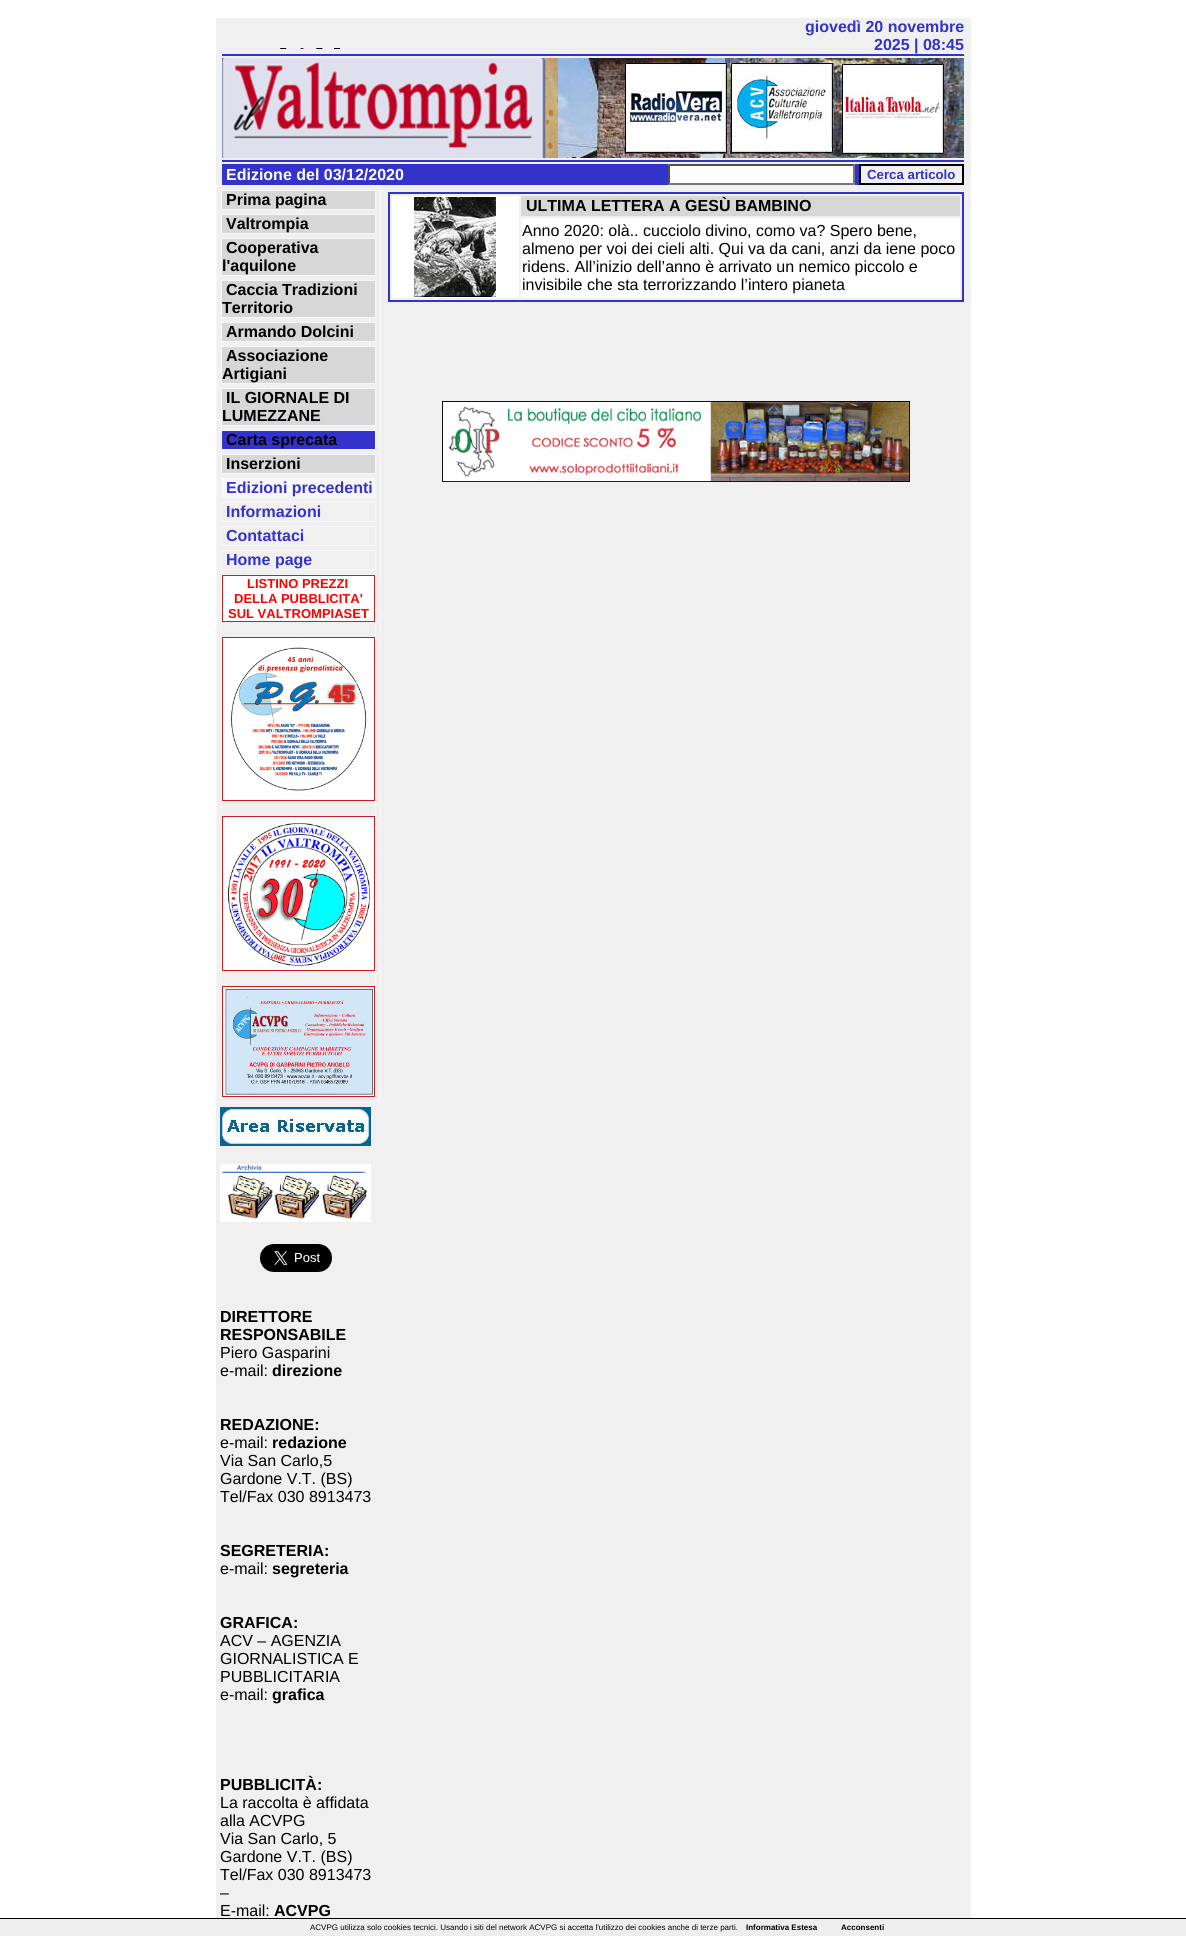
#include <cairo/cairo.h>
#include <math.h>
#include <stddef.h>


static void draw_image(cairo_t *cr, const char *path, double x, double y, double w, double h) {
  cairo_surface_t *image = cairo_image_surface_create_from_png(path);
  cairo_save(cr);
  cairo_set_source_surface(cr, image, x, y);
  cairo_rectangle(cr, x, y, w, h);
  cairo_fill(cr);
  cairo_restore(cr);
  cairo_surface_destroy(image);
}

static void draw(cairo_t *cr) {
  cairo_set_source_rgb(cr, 1, 1, 1);
  cairo_paint(cr);
  cairo_set_source_rgb(cr, 240 / 255.0, 240 / 255.0, 240 / 255.0);
  cairo_rectangle(cr, 216, 18, 755, 1900);
  cairo_fill(cr);
  draw_image(cr, "images/1.png", 280, 48, 61, 1);
  cairo_set_source_rgb(cr, 51 / 255.0, 51 / 255.0, 204 / 255.0);
  cairo_rectangle(cr, 222, 54, 742, 2);
  cairo_fill(cr);
  draw_image(cr, "images/2.png", 222, 58, 335, 100);
  draw_image(cr, "images/3.png", 557, 58, 1, 100);
  draw_image(cr, "images/4.png", 558, 58, 171, 100);
  draw_image(cr, "images/5.png", 729, 58, 110, 100);
  draw_image(cr, "images/6.png", 839, 58, 103, 100);
  draw_image(cr, "images/7.png", 942, 58, 22, 100);
  cairo_rectangle(cr, 222, 160, 742, 2);
  cairo_fill(cr);
  cairo_rectangle(cr, 222, 164, 637, 21);
  cairo_fill(cr);
  cairo_set_source_rgb(cr, 1, 1, 1);
  cairo_rectangle(cr, 668, 164, 187, 21);
  cairo_fill(cr);
  cairo_set_source_rgb(cr, 79 / 255.0, 79 / 255.0, 79 / 255.0);
  cairo_new_path(cr);
  cairo_move_to(cr, 668, 164);
  cairo_line_to(cr, 855, 164);
  cairo_line_to(cr, 853, 166);
  cairo_line_to(cr, 670, 166);
  cairo_close_path(cr);
  cairo_fill(cr);
  cairo_set_source_rgb(cr, 118 / 255.0, 118 / 255.0, 118 / 255.0);
  cairo_new_path(cr);
  cairo_move_to(cr, 855, 164);
  cairo_line_to(cr, 855, 185);
  cairo_line_to(cr, 853, 183);
  cairo_line_to(cr, 853, 166);
  cairo_close_path(cr);
  cairo_fill(cr);
  cairo_new_path(cr);
  cairo_move_to(cr, 855, 185);
  cairo_line_to(cr, 668, 185);
  cairo_line_to(cr, 670, 183);
  cairo_line_to(cr, 853, 183);
  cairo_close_path(cr);
  cairo_fill(cr);
  cairo_set_source_rgb(cr, 79 / 255.0, 79 / 255.0, 79 / 255.0);
  cairo_new_path(cr);
  cairo_move_to(cr, 668, 185);
  cairo_line_to(cr, 668, 164);
  cairo_line_to(cr, 670, 166);
  cairo_line_to(cr, 670, 183);
  cairo_close_path(cr);
  cairo_fill(cr);
  cairo_rectangle(cr, 860, 165, 103, 19);
  cairo_set_source_rgb(cr, 0, 0, 0);
  cairo_stroke(cr);
  cairo_rectangle(cr, 216.5, 185.5, 164, 917);
  cairo_set_source_rgb(cr, 247 / 255.0, 247 / 255.0, 247 / 255.0);
  cairo_set_line_width(cr, 1);
  cairo_stroke(cr);
  cairo_set_source_rgb(cr, 215 / 255.0, 215 / 255.0, 215 / 255.0);
  cairo_rectangle(cr, 221.5, 190.5, 154, 19);
  cairo_fill_preserve(cr);
  cairo_set_source_rgb(cr, 247 / 255.0, 247 / 255.0, 247 / 255.0);
  cairo_stroke(cr);
  cairo_set_source_rgb(cr, 215 / 255.0, 215 / 255.0, 215 / 255.0);
  cairo_rectangle(cr, 221.5, 214.5, 154, 19);
  cairo_fill_preserve(cr);
  cairo_set_source_rgb(cr, 247 / 255.0, 247 / 255.0, 247 / 255.0);
  cairo_stroke(cr);
  cairo_set_source_rgb(cr, 215 / 255.0, 215 / 255.0, 215 / 255.0);
  cairo_rectangle(cr, 221.5, 238.5, 154, 37);
  cairo_fill_preserve(cr);
  cairo_set_source_rgb(cr, 247 / 255.0, 247 / 255.0, 247 / 255.0);
  cairo_stroke(cr);
  cairo_set_source_rgb(cr, 215 / 255.0, 215 / 255.0, 215 / 255.0);
  cairo_rectangle(cr, 221.5, 280.5, 154, 37);
  cairo_fill_preserve(cr);
  cairo_set_source_rgb(cr, 247 / 255.0, 247 / 255.0, 247 / 255.0);
  cairo_stroke(cr);
  cairo_set_source_rgb(cr, 215 / 255.0, 215 / 255.0, 215 / 255.0);
  cairo_rectangle(cr, 221.5, 322.5, 154, 19);
  cairo_fill_preserve(cr);
  cairo_set_source_rgb(cr, 247 / 255.0, 247 / 255.0, 247 / 255.0);
  cairo_stroke(cr);
  cairo_set_source_rgb(cr, 215 / 255.0, 215 / 255.0, 215 / 255.0);
  cairo_rectangle(cr, 221.5, 346.5, 154, 37);
  cairo_fill_preserve(cr);
  cairo_set_source_rgb(cr, 247 / 255.0, 247 / 255.0, 247 / 255.0);
  cairo_stroke(cr);
  cairo_set_source_rgb(cr, 215 / 255.0, 215 / 255.0, 215 / 255.0);
  cairo_rectangle(cr, 221.5, 388.5, 154, 37);
  cairo_fill_preserve(cr);
  cairo_set_source_rgb(cr, 247 / 255.0, 247 / 255.0, 247 / 255.0);
  cairo_stroke(cr);
  cairo_set_source_rgb(cr, 51 / 255.0, 51 / 255.0, 204 / 255.0);
  cairo_rectangle(cr, 221.5, 430.5, 154, 19);
  cairo_fill_preserve(cr);
  cairo_set_source_rgb(cr, 247 / 255.0, 247 / 255.0, 247 / 255.0);
  cairo_stroke(cr);
  cairo_set_source_rgb(cr, 215 / 255.0, 215 / 255.0, 215 / 255.0);
  cairo_rectangle(cr, 221.5, 454.5, 154, 19);
  cairo_fill_preserve(cr);
  cairo_set_source_rgb(cr, 247 / 255.0, 247 / 255.0, 247 / 255.0);
  cairo_stroke(cr);
  cairo_rectangle(cr, 221, 478, 155, 20);
  cairo_fill(cr);
  cairo_rectangle(cr, 221.5, 502.5, 154, 19);
  cairo_stroke(cr);
  cairo_rectangle(cr, 221.5, 526.5, 154, 19);
  cairo_stroke(cr);
  cairo_rectangle(cr, 221.5, 550.5, 154, 19);
  cairo_stroke(cr);
  cairo_rectangle(cr, 221.5, 574.5, 154, 523);
  cairo_stroke(cr);
  cairo_set_source_rgb(cr, 1, 1, 1);
  cairo_rectangle(cr, 222.5, 575.5, 152, 46);
  cairo_fill_preserve(cr);
  cairo_set_source_rgb(cr, 200 / 255.0, 29 / 255.0, 35 / 255.0);
  cairo_stroke(cr);
  cairo_rectangle(cr, 222.5, 637.5, 152, 163);
  cairo_stroke(cr);
  draw_image(cr, "images/8.png", 223, 638, 151, 162);
  cairo_set_source_rgb(cr, 1, 1, 1);
  cairo_rectangle(cr, 222.5, 816.5, 152, 154);
  cairo_fill_preserve(cr);
  cairo_set_source_rgb(cr, 200 / 255.0, 29 / 255.0, 35 / 255.0);
  cairo_stroke(cr);
  draw_image(cr, "images/9.png", 227, 823, 143, 143);
  cairo_rectangle(cr, 222.5, 986.5, 152, 110);
  cairo_stroke(cr);
  draw_image(cr, "images/10.png", 223, 987, 151, 109);
  draw_image(cr, "images/11.png", 220, 1107, 151, 39);
  draw_image(cr, "images/12.png", 220, 1164, 151, 58);
  draw_image(cr, "images/13.png", 260, 1244, 72, 28);
  cairo_rectangle(cr, 388.5, 192.5, 575, 109);
  cairo_set_source_rgb(cr, 51 / 255.0, 51 / 255.0, 204 / 255.0);
  cairo_stroke(cr);
  cairo_rectangle(cr, 389.5, 193.5, 573, 107);
  cairo_stroke(cr);
  cairo_set_source_rgb(cr, 1, 1, 1);
  cairo_rectangle(cr, 392, 196, 127, 102);
  cairo_fill(cr);
  draw_image(cr, "images/14.png", 414, 197, 82, 100);
  cairo_set_source_rgb(cr, 215 / 255.0, 215 / 255.0, 215 / 255.0);
  cairo_rectangle(cr, 521, 196, 439, 20);
  cairo_fill(cr);
  cairo_set_source_rgb(cr, 1, 1, 1);
  cairo_rectangle(cr, 521, 218, 439, 80);
  cairo_fill(cr);
  draw_image(cr, "images/15.png", 442, 401, 468, 81);
  cairo_set_source_rgb(cr, 238 / 255.0, 238 / 255.0, 238 / 255.0);
  cairo_rectangle(cr, 0, 1919, 1186, 17);
  cairo_fill(cr);
  cairo_set_source_rgb(cr, 0, 0, 0);
  cairo_rectangle(cr, 0, 1918, 1186, 1);
  cairo_fill(cr);
  cairo_select_font_face(cr, "Liberation Sans", CAIRO_FONT_SLANT_NORMAL, CAIRO_FONT_WEIGHT_BOLD);
  cairo_set_font_size(cr, 16);
  cairo_set_source_rgb(cr, 51 / 255.0, 51 / 255.0, 204 / 255.0);
  cairo_move_to(cr, 805, 32);
  cairo_show_text(cr, "giovedì 20 novembre");
  cairo_move_to(cr, 874, 50);
  cairo_show_text(cr, "2025 | 08:45");
  cairo_set_source_rgb(cr, 1, 1, 1);
  cairo_move_to(cr, 226, 180);
  cairo_show_text(cr, "Edizione del 03/12/2020");
  cairo_set_font_size(cr, 13.25);
  cairo_set_source_rgb(cr, 51 / 255.0, 51 / 255.0, 204 / 255.0);
  cairo_move_to(cr, 867, 179);
  cairo_show_text(cr, "Cerca articolo");
  cairo_set_font_size(cr, 16);
  cairo_set_source_rgb(cr, 0, 0, 0);
  cairo_move_to(cr, 226, 205);
  cairo_show_text(cr, "Prima pagina");
  cairo_move_to(cr, 226, 229);
  cairo_show_text(cr, "Valtrompia");
  cairo_move_to(cr, 226, 253);
  cairo_show_text(cr, "Cooperativa");
  cairo_move_to(cr, 222, 271);
  cairo_show_text(cr, "l'aquilone");
  cairo_move_to(cr, 226, 295);
  cairo_show_text(cr, "Caccia Tradizioni");
  cairo_move_to(cr, 222, 313);
  cairo_show_text(cr, "Territorio");
  cairo_move_to(cr, 226, 337);
  cairo_show_text(cr, "Armando Dolcini");
  cairo_move_to(cr, 226, 361);
  cairo_show_text(cr, "Associazione");
  cairo_move_to(cr, 222, 379);
  cairo_show_text(cr, "Artigiani");
  cairo_move_to(cr, 226, 403);
  cairo_show_text(cr, "IL GIORNALE DI");
  cairo_move_to(cr, 222, 421);
  cairo_show_text(cr, "LUMEZZANE");
  cairo_move_to(cr, 226, 445);
  cairo_show_text(cr, "Carta sprecata");
  cairo_move_to(cr, 226, 469);
  cairo_show_text(cr, "Inserzioni");
  cairo_set_source_rgb(cr, 51 / 255.0, 51 / 255.0, 204 / 255.0);
  cairo_move_to(cr, 226, 493);
  cairo_show_text(cr, "Edizioni precedenti");
  cairo_move_to(cr, 226, 517);
  cairo_show_text(cr, "Informazioni");
  cairo_move_to(cr, 226, 541);
  cairo_show_text(cr, "Contattaci");
  cairo_move_to(cr, 226, 565);
  cairo_show_text(cr, "Home page");
  cairo_set_font_size(cr, 13);
  cairo_set_source_rgb(cr, 1, 0, 0);
  cairo_move_to(cr, 247, 588);
  cairo_show_text(cr, "LISTINO PREZZI");
  cairo_move_to(cr, 234, 603);
  cairo_show_text(cr, "DELLA PUBBLICITA'");
  cairo_move_to(cr, 228, 618);
  cairo_show_text(cr, "SUL VALTROMPIASET");
  cairo_set_font_size(cr, 16);
  cairo_set_source_rgb(cr, 0, 0, 0);
  cairo_move_to(cr, 220, 1322);
  cairo_show_text(cr, "DIRETTORE");
  cairo_move_to(cr, 220, 1340);
  cairo_show_text(cr, "RESPONSABILE");
  cairo_select_font_face(cr, "Liberation Sans", CAIRO_FONT_SLANT_NORMAL, CAIRO_FONT_WEIGHT_NORMAL);
  cairo_move_to(cr, 220, 1358);
  cairo_show_text(cr, "Piero Gasparini");
  cairo_move_to(cr, 220, 1376);
  cairo_show_text(cr, "e-mail:");
  cairo_select_font_face(cr, "Liberation Sans", CAIRO_FONT_SLANT_NORMAL, CAIRO_FONT_WEIGHT_BOLD);
  cairo_move_to(cr, 272, 1376);
  cairo_show_text(cr, "direzione");
  cairo_move_to(cr, 220, 1430);
  cairo_show_text(cr, "REDAZIONE:");
  cairo_select_font_face(cr, "Liberation Sans", CAIRO_FONT_SLANT_NORMAL, CAIRO_FONT_WEIGHT_NORMAL);
  cairo_move_to(cr, 220, 1448);
  cairo_show_text(cr, "e-mail:");
  cairo_select_font_face(cr, "Liberation Sans", CAIRO_FONT_SLANT_NORMAL, CAIRO_FONT_WEIGHT_BOLD);
  cairo_move_to(cr, 272, 1448);
  cairo_show_text(cr, "redazione");
  cairo_select_font_face(cr, "Liberation Sans", CAIRO_FONT_SLANT_NORMAL, CAIRO_FONT_WEIGHT_NORMAL);
  cairo_move_to(cr, 220, 1466);
  cairo_show_text(cr, "Via San Carlo,5");
  cairo_move_to(cr, 220, 1484);
  cairo_show_text(cr, "Gardone V.T. (BS)");
  cairo_move_to(cr, 220, 1502);
  cairo_show_text(cr, "Tel/Fax 030 8913473");
  cairo_select_font_face(cr, "Liberation Sans", CAIRO_FONT_SLANT_NORMAL, CAIRO_FONT_WEIGHT_BOLD);
  cairo_move_to(cr, 220, 1556);
  cairo_show_text(cr, "SEGRETERIA:");
  cairo_select_font_face(cr, "Liberation Sans", CAIRO_FONT_SLANT_NORMAL, CAIRO_FONT_WEIGHT_NORMAL);
  cairo_move_to(cr, 220, 1574);
  cairo_show_text(cr, "e-mail:");
  cairo_select_font_face(cr, "Liberation Sans", CAIRO_FONT_SLANT_NORMAL, CAIRO_FONT_WEIGHT_BOLD);
  cairo_move_to(cr, 272, 1574);
  cairo_show_text(cr, "segreteria");
  cairo_move_to(cr, 220, 1628);
  cairo_show_text(cr, "GRAFICA:");
  cairo_select_font_face(cr, "Liberation Sans", CAIRO_FONT_SLANT_NORMAL, CAIRO_FONT_WEIGHT_NORMAL);
  cairo_move_to(cr, 220, 1646);
  cairo_show_text(cr, "ACV – AGENZIA");
  cairo_move_to(cr, 220, 1664);
  cairo_show_text(cr, "GIORNALISTICA E");
  cairo_move_to(cr, 220, 1682);
  cairo_show_text(cr, "PUBBLICITARIA");
  cairo_move_to(cr, 220, 1700);
  cairo_show_text(cr, "e-mail:");
  cairo_select_font_face(cr, "Liberation Sans", CAIRO_FONT_SLANT_NORMAL, CAIRO_FONT_WEIGHT_BOLD);
  cairo_move_to(cr, 272, 1700);
  cairo_show_text(cr, "grafica");
  cairo_move_to(cr, 220, 1790);
  cairo_show_text(cr, "PUBBLICITÀ:");
  cairo_select_font_face(cr, "Liberation Sans", CAIRO_FONT_SLANT_NORMAL, CAIRO_FONT_WEIGHT_NORMAL);
  cairo_move_to(cr, 220, 1808);
  cairo_show_text(cr, "La raccolta è affidata");
  cairo_move_to(cr, 220, 1826);
  cairo_show_text(cr, "alla ACVPG");
  cairo_move_to(cr, 220, 1844);
  cairo_show_text(cr, "Via San Carlo, 5");
  cairo_move_to(cr, 220, 1862);
  cairo_show_text(cr, "Gardone V.T. (BS)");
  cairo_move_to(cr, 220, 1880);
  cairo_show_text(cr, "Tel/Fax 030 8913473");
  cairo_move_to(cr, 220, 1898);
  cairo_show_text(cr, "–");
  cairo_move_to(cr, 220, 1916);
  cairo_show_text(cr, "E-mail:");
  cairo_select_font_face(cr, "Liberation Sans", CAIRO_FONT_SLANT_NORMAL, CAIRO_FONT_WEIGHT_BOLD);
  cairo_move_to(cr, 274, 1916);
  cairo_show_text(cr, "ACVPG");
  cairo_move_to(cr, 526, 211);
  cairo_show_text(cr, "ULTIMA LETTERA A GESÙ BAMBINO");
  cairo_select_font_face(cr, "Liberation Sans", CAIRO_FONT_SLANT_NORMAL, CAIRO_FONT_WEIGHT_NORMAL);
  cairo_move_to(cr, 522, 236);
  cairo_show_text(cr, "Anno 2020: olà.. cucciolo divino, como va? Spero bene,");
  cairo_move_to(cr, 522, 254);
  cairo_show_text(cr, "almeno per voi dei cieli alti. Qui va da cani, anzi da iene poco");
  cairo_move_to(cr, 522, 272);
  cairo_show_text(cr, "ridens. All’inizio dell’anno è arrivato un nemico piccolo e");
  cairo_move_to(cr, 522, 290);
  cairo_show_text(cr, "invisibile che sta terrorizzando l’intero pianeta");
  cairo_set_font_size(cr, 8);
  cairo_move_to(cr, 310, 1930);
  cairo_show_text(cr, "ACVPG utilizza solo cookies tecnici. Usando i siti del network ACVPG si accetta l'utilizzo dei cookies anche di terze parti.");
  cairo_select_font_face(cr, "Liberation Sans", CAIRO_FONT_SLANT_NORMAL, CAIRO_FONT_WEIGHT_BOLD);
  cairo_move_to(cr, 746, 1930);
  cairo_show_text(cr, "Informativa Estesa");
  cairo_move_to(cr, 841, 1930);
  cairo_show_text(cr, "Acconsenti");
}

int main(void) {
  cairo_surface_t *surface = cairo_image_surface_create(CAIRO_FORMAT_RGB24, 1186, 1936);
  cairo_t *cr = cairo_create(surface);
  cairo_font_options_t *options = cairo_font_options_create();
  cairo_font_options_set_hint_metrics(options, CAIRO_HINT_METRICS_OFF);
  cairo_font_options_set_hint_style(options, CAIRO_HINT_STYLE_NONE);
  cairo_set_font_options(cr, options);
  cairo_set_miter_limit(cr, 4);
  draw(cr);
  cairo_surface_write_to_png(surface, "out.png");
  cairo_font_options_destroy(options);
  cairo_destroy(cr);
  cairo_surface_destroy(surface);
  return 0;
}
